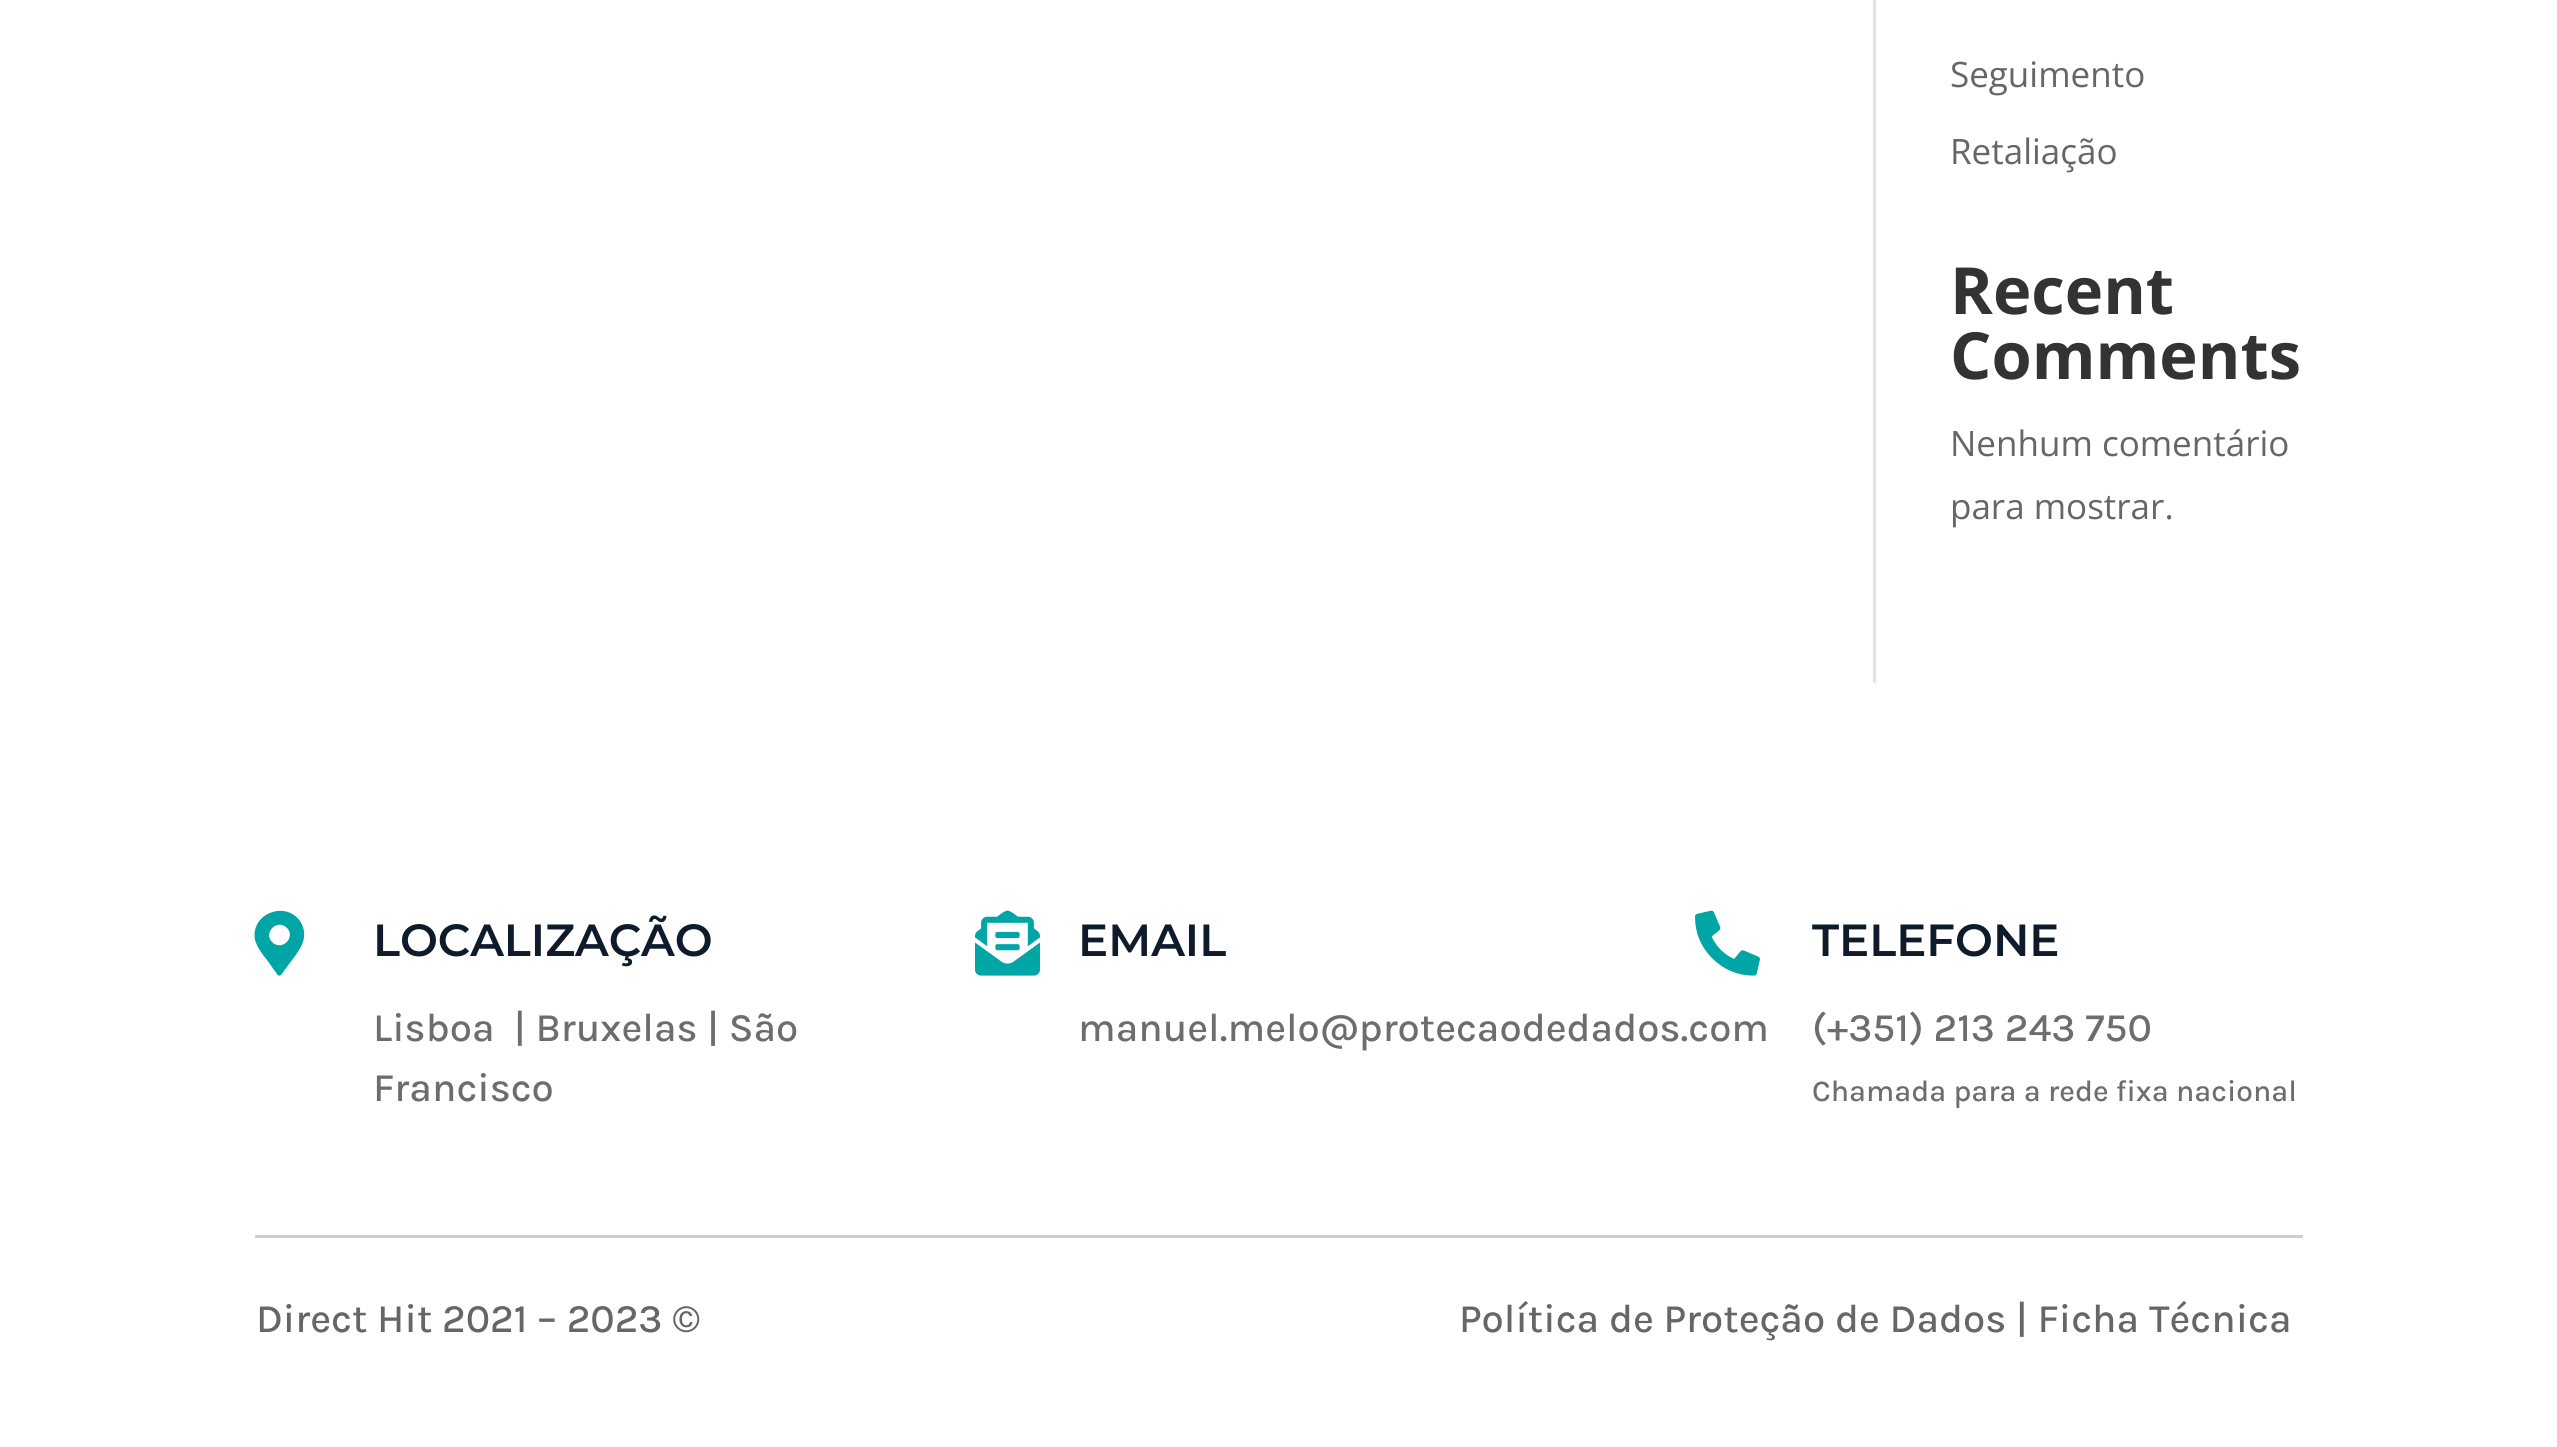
#include <cairo/cairo.h>
#include <math.h>
#include <stddef.h>


static void draw_image(cairo_t *cr, const char *path, double x, double y, double w, double h) {
  cairo_surface_t *image = cairo_image_surface_create_from_png(path);
  cairo_save(cr);
  cairo_set_source_surface(cr, image, x, y);
  cairo_rectangle(cr, x, y, w, h);
  cairo_fill(cr);
  cairo_restore(cr);
  cairo_surface_destroy(image);
}

static void draw(cairo_t *cr) {
  cairo_set_source_rgb(cr, 1, 1, 1);
  cairo_paint(cr);
  cairo_set_source_rgb(cr, 226 / 255.0, 226 / 255.0, 226 / 255.0);
  cairo_rectangle(cr, 1873, 0, 3, 683);
  cairo_fill(cr);
  cairo_set_source_rgb(cr, 0, 166 / 255.0, 166 / 255.0);
  cairo_new_path(cr);
  cairo_move_to(cr, 277, 974);
  cairo_line_to(cr, 267, 960);
  cairo_curve_to(cr, 262, 954, 257, 947, 255, 940);
  cairo_curve_to(cr, 250, 914, 285, 900, 300, 921);
  cairo_curve_to(cr, 311, 938, 298, 952, 289, 964);
  cairo_line_to(cr, 281, 975);
  cairo_curve_to(cr, 279, 976, 278, 976, 277, 974);
  cairo_close_path(cr);
  cairo_move_to(cr, 272, 942);
  cairo_curve_to(cr, 282, 952, 296, 937, 287, 928);
  cairo_curve_to(cr, 277, 918, 263, 933, 272, 942);
  cairo_close_path(cr);
  cairo_fill(cr);
  draw_image(cr, "images/1.png", 975, 910, 65, 66);
  draw_image(cr, "images/2.png", 1695, 910, 65, 66);
  cairo_set_source_rgb(cr, 208 / 255.0, 207 / 255.0, 207 / 255.0);
  cairo_rectangle(cr, 255, 1235, 2048, 3);
  cairo_fill(cr);
  cairo_select_font_face(cr, "Open Sans", CAIRO_FONT_SLANT_NORMAL, CAIRO_FONT_WEIGHT_NORMAL);
  cairo_set_font_size(cr, 35);
  cairo_set_source_rgb(cr, 102 / 255.0, 102 / 255.0, 102 / 255.0);
  cairo_move_to(cr, 1950, 87);
  cairo_show_text(cr, "Seguimento");
  cairo_move_to(cr, 1950, 164);
  cairo_show_text(cr, "Retaliação");
  cairo_select_font_face(cr, "Open Sans", CAIRO_FONT_SLANT_NORMAL, CAIRO_FONT_WEIGHT_BOLD);
  cairo_set_font_size(cr, 65);
  cairo_set_source_rgb(cr, 51 / 255.0, 51 / 255.0, 51 / 255.0);
  cairo_move_to(cr, 1950, 314);
  cairo_show_text(cr, "Recent");
  cairo_move_to(cr, 1950, 379);
  cairo_show_text(cr, "Comments");
  cairo_select_font_face(cr, "Open Sans", CAIRO_FONT_SLANT_NORMAL, CAIRO_FONT_WEIGHT_NORMAL);
  cairo_set_font_size(cr, 35);
  cairo_set_source_rgb(cr, 102 / 255.0, 102 / 255.0, 102 / 255.0);
  cairo_move_to(cr, 1950, 456);
  cairo_show_text(cr, "Nenhum comentário");
  cairo_move_to(cr, 1950, 519);
  cairo_show_text(cr, "para mostrar.");
  cairo_select_font_face(cr, "Montserrat SemiBold", CAIRO_FONT_SLANT_NORMAL, CAIRO_FONT_WEIGHT_NORMAL);
  cairo_set_font_size(cr, 45);
  cairo_set_source_rgb(cr, 13 / 255.0, 27 / 255.0, 42 / 255.0);
  cairo_move_to(cr, 373, 956);
  cairo_show_text(cr, "LOCALIZAÇÃO");
  cairo_select_font_face(cr, "Karla Medium", CAIRO_FONT_SLANT_NORMAL, CAIRO_FONT_WEIGHT_NORMAL);
  cairo_set_font_size(cr, 40);
  cairo_set_source_rgb(cr, 109 / 255.0, 109 / 255.0, 109 / 255.0);
  cairo_move_to(cr, 373, 1041);
  cairo_show_text(cr, "Lisboa  | Bruxelas | São");
  cairo_move_to(cr, 373, 1101);
  cairo_show_text(cr, "Francisco");
  cairo_select_font_face(cr, "Montserrat SemiBold", CAIRO_FONT_SLANT_NORMAL, CAIRO_FONT_WEIGHT_NORMAL);
  cairo_set_font_size(cr, 45);
  cairo_set_source_rgb(cr, 13 / 255.0, 27 / 255.0, 42 / 255.0);
  cairo_move_to(cr, 1078, 956);
  cairo_show_text(cr, "EMAIL");
  cairo_select_font_face(cr, "Karla Medium", CAIRO_FONT_SLANT_NORMAL, CAIRO_FONT_WEIGHT_NORMAL);
  cairo_set_font_size(cr, 40);
  cairo_set_source_rgb(cr, 109 / 255.0, 109 / 255.0, 109 / 255.0);
  cairo_move_to(cr, 1078, 1041);
  cairo_show_text(cr, "manuel.melo@protecaodedados.com");
  cairo_select_font_face(cr, "Montserrat SemiBold", CAIRO_FONT_SLANT_NORMAL, CAIRO_FONT_WEIGHT_NORMAL);
  cairo_set_font_size(cr, 45);
  cairo_set_source_rgb(cr, 13 / 255.0, 27 / 255.0, 42 / 255.0);
  cairo_move_to(cr, 1812, 956);
  cairo_show_text(cr, "TELEFONE");
  cairo_select_font_face(cr, "Karla Medium", CAIRO_FONT_SLANT_NORMAL, CAIRO_FONT_WEIGHT_NORMAL);
  cairo_set_font_size(cr, 40);
  cairo_set_source_rgb(cr, 109 / 255.0, 109 / 255.0, 109 / 255.0);
  cairo_move_to(cr, 1812, 1041);
  cairo_show_text(cr, "(+351) 213 243 750");
  cairo_set_font_size(cr, 30);
  cairo_move_to(cr, 1812, 1101);
  cairo_show_text(cr, "Chamada para a rede fixa nacional");
  cairo_set_font_size(cr, 40);
  cairo_set_source_rgb(cr, 102 / 255.0, 102 / 255.0, 102 / 255.0);
  cairo_move_to(cr, 256, 1332);
  cairo_show_text(cr, "Direct Hit 2021 – 2023 ©");
  cairo_move_to(cr, 1459, 1332);
  cairo_show_text(cr, "Política de Proteção de Dados | Ficha Técnica");
}

int main(void) {
  cairo_surface_t *surface = cairo_image_surface_create(CAIRO_FORMAT_RGB24, 2557, 1447);
  cairo_t *cr = cairo_create(surface);
  cairo_font_options_t *options = cairo_font_options_create();
  cairo_font_options_set_hint_metrics(options, CAIRO_HINT_METRICS_OFF);
  cairo_font_options_set_hint_style(options, CAIRO_HINT_STYLE_NONE);
  cairo_set_font_options(cr, options);
  cairo_set_miter_limit(cr, 4);
  draw(cr);
  cairo_surface_write_to_png(surface, "out.png");
  cairo_font_options_destroy(options);
  cairo_destroy(cr);
  cairo_surface_destroy(surface);
  return 0;
}
